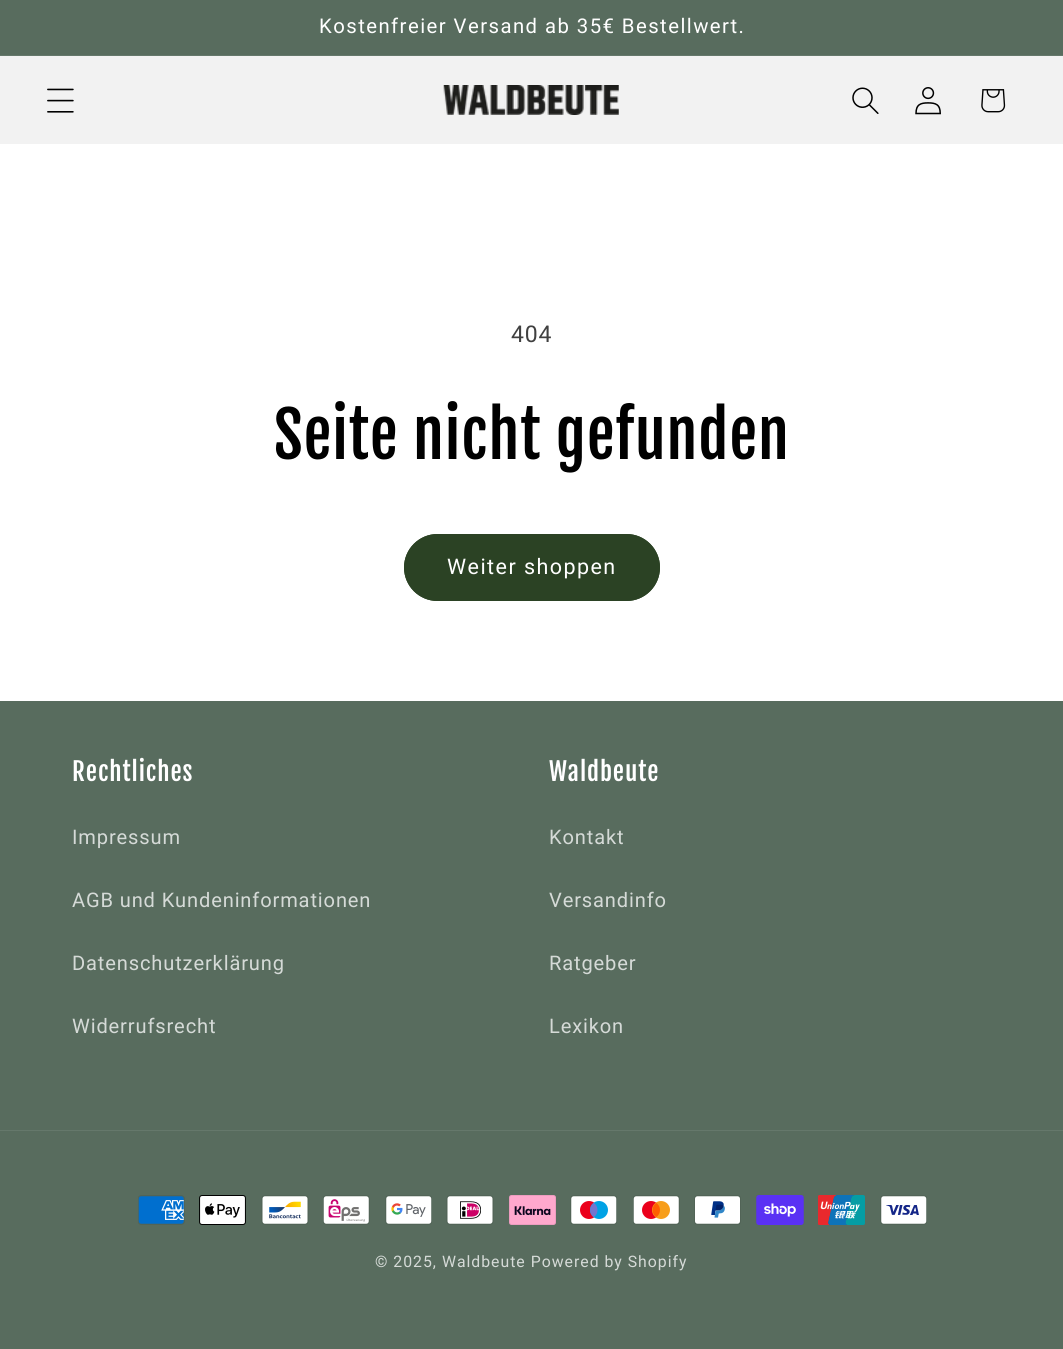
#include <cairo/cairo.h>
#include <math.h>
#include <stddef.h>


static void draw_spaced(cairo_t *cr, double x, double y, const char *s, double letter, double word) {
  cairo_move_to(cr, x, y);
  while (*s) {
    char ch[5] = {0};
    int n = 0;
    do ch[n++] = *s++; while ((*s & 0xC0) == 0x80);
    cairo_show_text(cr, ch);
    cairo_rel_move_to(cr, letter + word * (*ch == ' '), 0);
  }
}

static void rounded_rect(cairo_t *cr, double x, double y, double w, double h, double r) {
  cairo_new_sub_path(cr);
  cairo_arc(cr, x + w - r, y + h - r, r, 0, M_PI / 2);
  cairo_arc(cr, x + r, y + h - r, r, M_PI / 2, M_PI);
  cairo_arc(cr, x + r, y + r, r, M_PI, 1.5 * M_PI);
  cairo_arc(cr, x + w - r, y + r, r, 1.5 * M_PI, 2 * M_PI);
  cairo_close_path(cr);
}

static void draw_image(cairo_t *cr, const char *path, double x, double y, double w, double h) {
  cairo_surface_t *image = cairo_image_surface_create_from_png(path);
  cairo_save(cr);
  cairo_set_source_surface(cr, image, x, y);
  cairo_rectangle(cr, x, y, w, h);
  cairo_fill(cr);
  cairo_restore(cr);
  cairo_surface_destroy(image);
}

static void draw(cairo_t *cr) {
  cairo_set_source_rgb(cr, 1, 1, 1);
  cairo_paint(cr);
  cairo_set_source_rgb(cr, 88 / 255.0, 108 / 255.0, 94 / 255.0);
  cairo_rectangle(cr, 0, 0, 1063, 55);
  cairo_fill(cr);
  cairo_set_source_rgb(cr, 101 / 255.0, 120 / 255.0, 107 / 255.0);
  cairo_rectangle(cr, 0, 55, 1063, 1);
  cairo_fill(cr);
  cairo_set_source_rgb(cr, 242 / 255.0, 242 / 255.0, 242 / 255.0);
  cairo_rectangle(cr, 0, 56, 1063, 88);
  cairo_fill(cr);
  draw_image(cr, "images/1.png", 47, 88, 27, 25);
  draw_image(cr, "images/2.png", 443, 85, 176, 30);
  draw_image(cr, "images/3.png", 852, 87, 27, 27);
  draw_image(cr, "images/4.png", 915, 87, 26, 28);
  draw_image(cr, "images/5.png", 981, 89, 25, 24);
  cairo_set_source_rgb(cr, 43 / 255.0, 66 / 255.0, 36 / 255.0);
  rounded_rect(cr, 404, 534, 256, 67, 33.5);
  cairo_fill(cr);
  rounded_rect(cr, 404.5, 534.5, 255, 66, 33);
  cairo_set_line_width(cr, 1);
  cairo_stroke(cr);
  cairo_set_source_rgb(cr, 88 / 255.0, 108 / 255.0, 94 / 255.0);
  cairo_rectangle(cr, 0, 701, 1063, 648);
  cairo_fill(cr);
  cairo_set_source_rgb(cr, 101 / 255.0, 120 / 255.0, 107 / 255.0);
  cairo_rectangle(cr, 0, 1130, 1063, 1);
  cairo_fill(cr);
  draw_image(cr, "images/6.png", 138, 1195, 47, 30);
  draw_image(cr, "images/7.png", 199, 1195, 47, 30);
  draw_image(cr, "images/8.png", 261, 1195, 48, 30);
  draw_image(cr, "images/9.png", 323, 1195, 47, 30);
  draw_image(cr, "images/10.png", 385, 1195, 47, 30);
  draw_image(cr, "images/11.png", 446, 1195, 48, 30);
  draw_image(cr, "images/12.png", 509, 1195, 47, 30);
  draw_image(cr, "images/13.png", 570, 1195, 47, 30);
  draw_image(cr, "images/14.png", 633, 1195, 47, 30);
  draw_image(cr, "images/15.png", 694, 1195, 47, 30);
  draw_image(cr, "images/16.png", 756, 1195, 48, 30);
  draw_image(cr, "images/17.png", 818, 1195, 47, 30);
  draw_image(cr, "images/18.png", 880, 1195, 47, 30);
  cairo_select_font_face(cr, "Roboto", CAIRO_FONT_SLANT_NORMAL, CAIRO_FONT_WEIGHT_NORMAL);
  cairo_set_font_size(cr, 20.3);
  cairo_set_source_rgb(cr, 1, 1, 1);
  draw_spaced(cr, 319, 33, "Kostenfreier Versand ab 35€ Bestellwert.", 1.45, 0);
  cairo_set_font_size(cr, 23);
  cairo_set_source_rgb(cr, 64 / 255.0, 64 / 255.0, 64 / 255.0);
  draw_spaced(cr, 511, 342, "404", 0.85, 0);
  cairo_select_font_face(cr, "Fjalla One", CAIRO_FONT_SLANT_NORMAL, CAIRO_FONT_WEIGHT_NORMAL);
  cairo_set_font_size(cr, 62.5);
  cairo_set_source_rgb(cr, 0, 0, 0);
  draw_spaced(cr, 274, 459, "Seite nicht gefunden", 0.9, 0);
  cairo_select_font_face(cr, "Roboto", CAIRO_FONT_SLANT_NORMAL, CAIRO_FONT_WEIGHT_NORMAL);
  cairo_set_font_size(cr, 21.5);
  cairo_set_source_rgb(cr, 1, 1, 1);
  draw_spaced(cr, 447, 574, "Weiter shoppen", 1.45, 0);
  cairo_select_font_face(cr, "Fjalla One", CAIRO_FONT_SLANT_NORMAL, CAIRO_FONT_WEIGHT_NORMAL);
  cairo_set_font_size(cr, 25);
  draw_spaced(cr, 72, 781, "Rechtliches", 0.9, 0);
  cairo_select_font_face(cr, "Roboto", CAIRO_FONT_SLANT_NORMAL, CAIRO_FONT_WEIGHT_NORMAL);
  cairo_set_font_size(cr, 20.1);
  cairo_set_source_rgb(cr, 213 / 255.0, 218 / 255.0, 215 / 255.0);
  draw_spaced(cr, 72, 844, "Impressum", 0.85, 0);
  draw_spaced(cr, 72, 907, "AGB und Kundeninformationen", 0.85, 0);
  draw_spaced(cr, 72, 970, "Datenschutzerklärung", 0.85, 0);
  draw_spaced(cr, 72, 1033, "Widerrufsrecht", 0.85, 0);
  cairo_select_font_face(cr, "Fjalla One", CAIRO_FONT_SLANT_NORMAL, CAIRO_FONT_WEIGHT_NORMAL);
  cairo_set_font_size(cr, 25);
  cairo_set_source_rgb(cr, 1, 1, 1);
  draw_spaced(cr, 549, 781, "Waldbeute", 0.9, 0);
  cairo_select_font_face(cr, "Roboto", CAIRO_FONT_SLANT_NORMAL, CAIRO_FONT_WEIGHT_NORMAL);
  cairo_set_font_size(cr, 20.1);
  cairo_set_source_rgb(cr, 213 / 255.0, 218 / 255.0, 215 / 255.0);
  draw_spaced(cr, 549, 844, "Kontakt", 0.85, 0);
  draw_spaced(cr, 549, 907, "Versandinfo", 0.85, 0);
  draw_spaced(cr, 549, 970, "Ratgeber", 0.85, 0);
  draw_spaced(cr, 549, 1033, "Lexikon", 0.85, 0);
  cairo_set_font_size(cr, 15.8);
  draw_spaced(cr, 375, 1267, "© 2025, Waldbeute Powered by Shopify", 1, 0);
}

int main(void) {
  cairo_surface_t *surface = cairo_image_surface_create(CAIRO_FORMAT_RGB24, 1063, 1349);
  cairo_t *cr = cairo_create(surface);
  cairo_font_options_t *options = cairo_font_options_create();
  cairo_font_options_set_hint_metrics(options, CAIRO_HINT_METRICS_OFF);
  cairo_font_options_set_hint_style(options, CAIRO_HINT_STYLE_NONE);
  cairo_set_font_options(cr, options);
  cairo_set_miter_limit(cr, 4);
  draw(cr);
  cairo_surface_write_to_png(surface, "out.png");
  cairo_font_options_destroy(options);
  cairo_destroy(cr);
  cairo_surface_destroy(surface);
  return 0;
}
